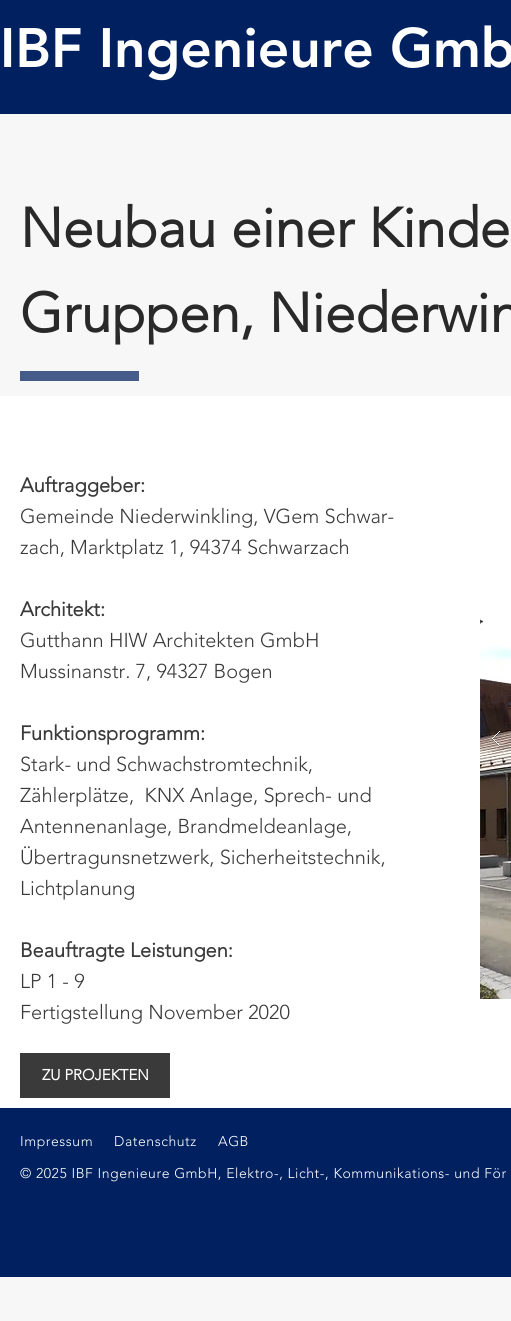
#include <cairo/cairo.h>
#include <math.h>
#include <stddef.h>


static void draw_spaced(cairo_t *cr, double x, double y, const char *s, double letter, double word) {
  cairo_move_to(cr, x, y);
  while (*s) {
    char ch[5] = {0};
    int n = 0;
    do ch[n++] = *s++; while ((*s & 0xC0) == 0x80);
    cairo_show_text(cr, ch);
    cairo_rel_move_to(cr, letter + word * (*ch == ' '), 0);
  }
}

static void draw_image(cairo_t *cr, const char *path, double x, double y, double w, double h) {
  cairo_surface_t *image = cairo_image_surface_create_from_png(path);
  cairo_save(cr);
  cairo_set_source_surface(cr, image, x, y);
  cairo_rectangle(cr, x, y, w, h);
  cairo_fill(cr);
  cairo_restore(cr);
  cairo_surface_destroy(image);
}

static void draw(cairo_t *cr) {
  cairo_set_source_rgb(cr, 247 / 255.0, 247 / 255.0, 247 / 255.0);
  cairo_paint(cr);
  cairo_set_source_rgb(cr, 1 / 255.0, 32 / 255.0, 96 / 255.0);
  cairo_rectangle(cr, 0, 0, 511, 114);
  cairo_fill(cr);
  cairo_set_source_rgb(cr, 69 / 255.0, 91 / 255.0, 136 / 255.0);
  cairo_rectangle(cr, 20, 371, 119, 10);
  cairo_fill(cr);
  cairo_set_source_rgb(cr, 1, 1, 1);
  cairo_rectangle(cr, 0, 396, 511, 712);
  cairo_fill(cr);
  cairo_set_source_rgb(cr, 59 / 255.0, 58 / 255.0, 58 / 255.0);
  cairo_rectangle(cr, 20, 1053, 150, 45);
  cairo_fill(cr);
  draw_image(cr, "images/1.png", 480, 478, 31, 521);
  draw_image(cr, "images/2.png", 492, 731, 8, 16);
  cairo_set_source_rgb(cr, 1 / 255.0, 32 / 255.0, 96 / 255.0);
  cairo_rectangle(cr, 0, 1108, 511, 169);
  cairo_fill(cr);
  cairo_select_font_face(cr, "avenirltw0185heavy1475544 Black", CAIRO_FONT_SLANT_NORMAL, CAIRO_FONT_WEIGHT_NORMAL);
  cairo_set_font_size(cr, 55);
  cairo_set_source_rgb(cr, 1, 1, 1);
  cairo_move_to(cr, 0, 67);
  cairo_show_text(cr, "IBF Ingenieure Gmb");
  cairo_select_font_face(cr, "Avenir", CAIRO_FONT_SLANT_NORMAL, CAIRO_FONT_WEIGHT_BOLD);
  cairo_set_source_rgb(cr, 42 / 255.0, 41 / 255.0, 41 / 255.0);
  cairo_move_to(cr, 20, 247);
  cairo_show_text(cr, "Neubau einer Kinde");
  cairo_move_to(cr, 20, 332);
  cairo_show_text(cr, "Gruppen, Niederwin");
  cairo_set_font_size(cr, 20);
  cairo_set_source_rgb(cr, 59 / 255.0, 58 / 255.0, 58 / 255.0);
  cairo_move_to(cr, 20, 492);
  cairo_show_text(cr, "Auftraggeber:");
  cairo_select_font_face(cr, "Avenir Light", CAIRO_FONT_SLANT_NORMAL, CAIRO_FONT_WEIGHT_NORMAL);
  cairo_move_to(cr, 20, 523);
  cairo_show_text(cr, "Gemeinde Niederwinkling, VGem Schwar-");
  cairo_move_to(cr, 20, 554);
  cairo_show_text(cr, "zach, Marktplatz 1, 94374 Schwarzach");
  cairo_select_font_face(cr, "Avenir", CAIRO_FONT_SLANT_NORMAL, CAIRO_FONT_WEIGHT_BOLD);
  cairo_move_to(cr, 20, 616);
  cairo_show_text(cr, "Architekt:");
  cairo_select_font_face(cr, "Avenir Light", CAIRO_FONT_SLANT_NORMAL, CAIRO_FONT_WEIGHT_NORMAL);
  cairo_move_to(cr, 20, 647);
  cairo_show_text(cr, "Gutthann HIW Architekten GmbH");
  cairo_move_to(cr, 20, 678);
  cairo_show_text(cr, "Mussinanstr. 7, 94327 Bogen");
  cairo_select_font_face(cr, "Avenir", CAIRO_FONT_SLANT_NORMAL, CAIRO_FONT_WEIGHT_BOLD);
  cairo_move_to(cr, 20, 740);
  cairo_show_text(cr, "Funktionsprogramm:");
  cairo_select_font_face(cr, "Avenir Light", CAIRO_FONT_SLANT_NORMAL, CAIRO_FONT_WEIGHT_NORMAL);
  cairo_move_to(cr, 20, 771);
  cairo_show_text(cr, "Stark- und Schwachstromtechnik,");
  cairo_move_to(cr, 20, 802);
  cairo_show_text(cr, "Zählerplätze,  KNX Anlage, Sprech- und");
  cairo_move_to(cr, 20, 833);
  cairo_show_text(cr, "Antennenanlage, Brandmeldeanlage,");
  cairo_move_to(cr, 20, 864);
  cairo_show_text(cr, "Übertragunsnetzwerk, Sicherheitstechnik,");
  cairo_move_to(cr, 20, 895);
  cairo_show_text(cr, "Lichtplanung");
  cairo_select_font_face(cr, "Avenir", CAIRO_FONT_SLANT_NORMAL, CAIRO_FONT_WEIGHT_BOLD);
  cairo_move_to(cr, 20, 957);
  cairo_show_text(cr, "Beauftragte Leistungen:");
  cairo_select_font_face(cr, "Avenir Light", CAIRO_FONT_SLANT_NORMAL, CAIRO_FONT_WEIGHT_NORMAL);
  cairo_move_to(cr, 20, 988);
  cairo_show_text(cr, "LP 1 - 9");
  cairo_move_to(cr, 20, 1019);
  cairo_show_text(cr, "Fertigstellung November 2020");
  cairo_select_font_face(cr, "Avenir", CAIRO_FONT_SLANT_NORMAL, CAIRO_FONT_WEIGHT_BOLD);
  cairo_set_font_size(cr, 15);
  cairo_set_source_rgb(cr, 1, 1, 1);
  cairo_move_to(cr, 42, 1080);
  cairo_show_text(cr, "ZU PROJEKTEN");
  cairo_select_font_face(cr, "Avenir Light", CAIRO_FONT_SLANT_NORMAL, CAIRO_FONT_WEIGHT_NORMAL);
  cairo_set_font_size(cr, 14);
  draw_spaced(cr, 20, 1146, "Impressum", 0.55, 0);
  draw_spaced(cr, 114, 1146, "Datenschutz", 0.55, 0);
  draw_spaced(cr, 218, 1146, "AGB", 0.55, 0);
  draw_spaced(cr, 20, 1178, "© 2025 IBF Ingenieure GmbH, Elektro-, Licht-, Kommunikations- und För", 0.55, 0);
}

int main(void) {
  cairo_surface_t *surface = cairo_image_surface_create(CAIRO_FORMAT_RGB24, 511, 1321);
  cairo_t *cr = cairo_create(surface);
  cairo_font_options_t *options = cairo_font_options_create();
  cairo_font_options_set_hint_metrics(options, CAIRO_HINT_METRICS_OFF);
  cairo_font_options_set_hint_style(options, CAIRO_HINT_STYLE_NONE);
  cairo_set_font_options(cr, options);
  cairo_set_miter_limit(cr, 4);
  draw(cr);
  cairo_surface_write_to_png(surface, "out.png");
  cairo_font_options_destroy(options);
  cairo_destroy(cr);
  cairo_surface_destroy(surface);
  return 0;
}
